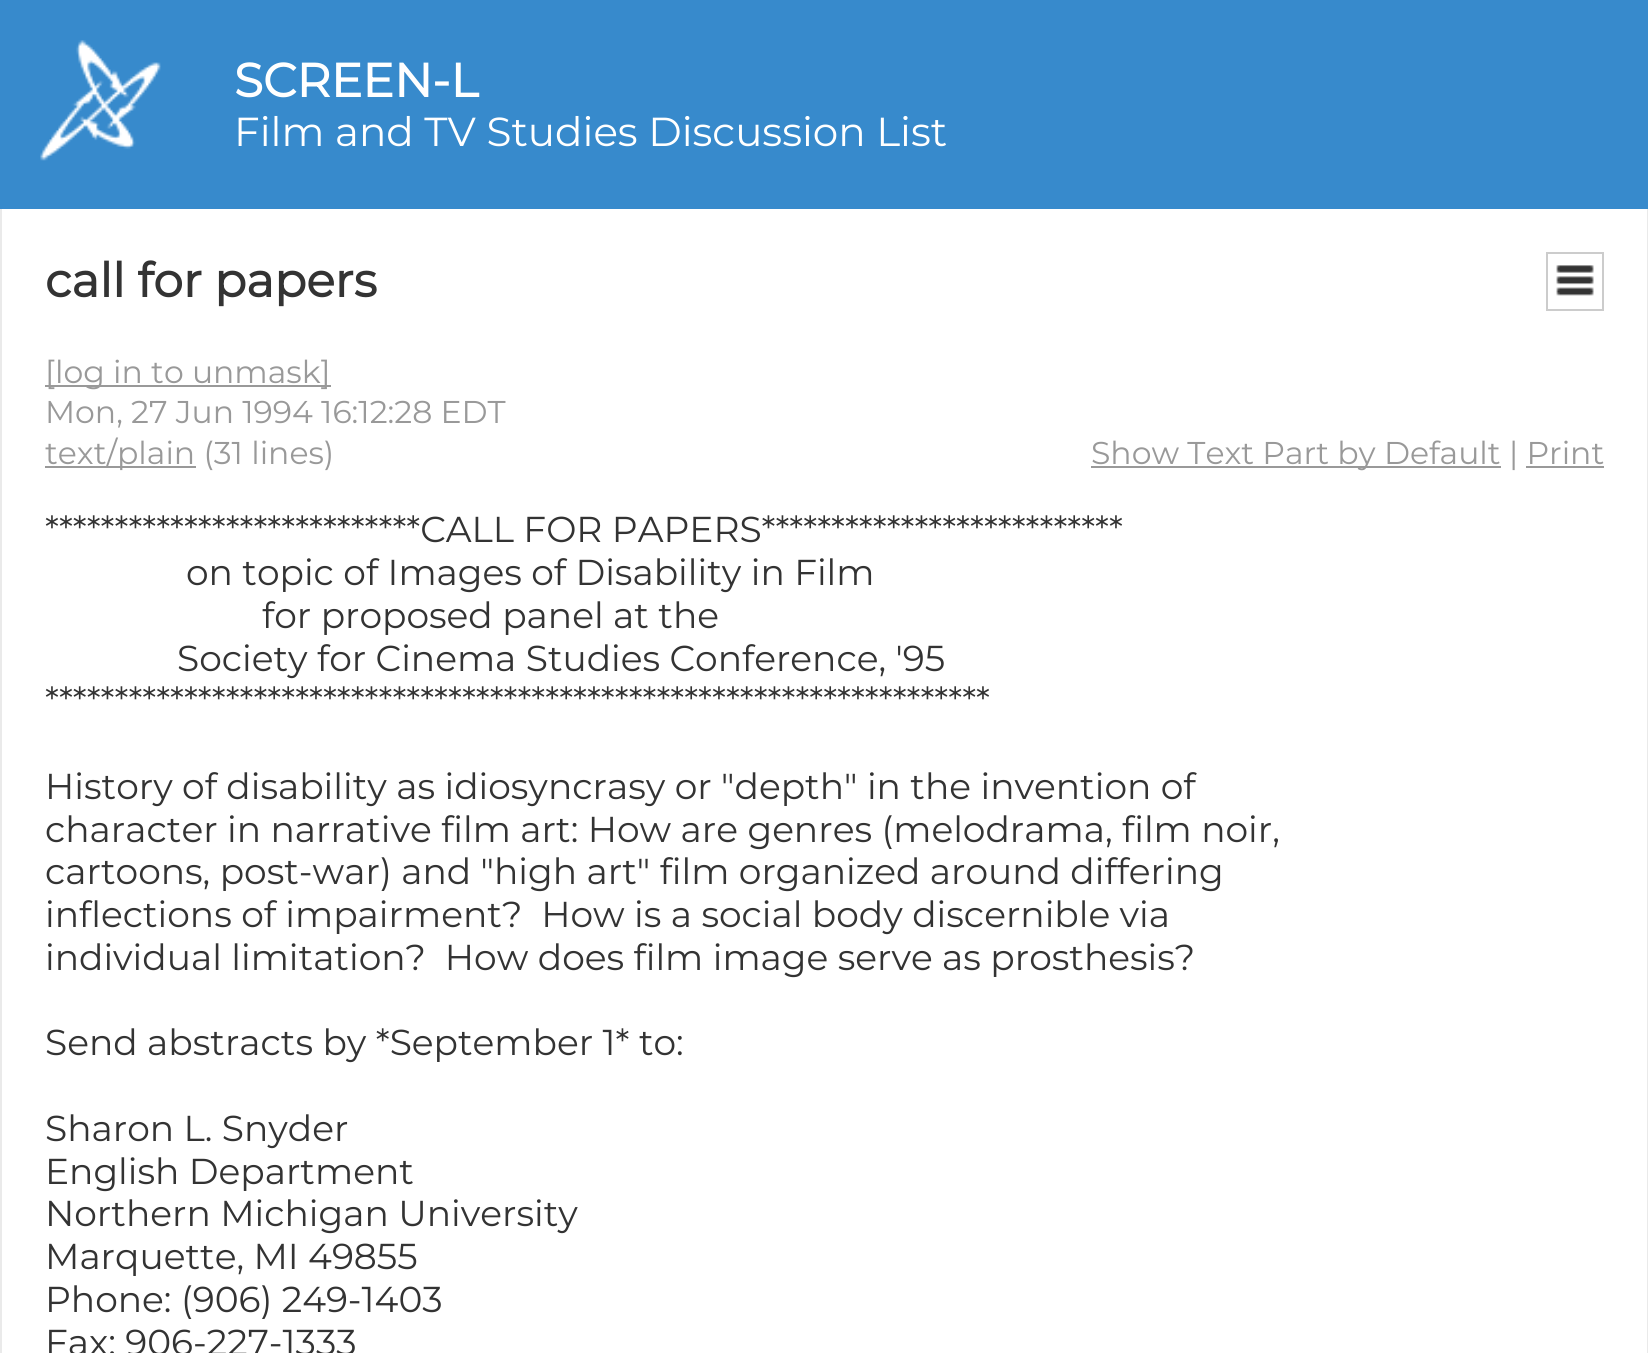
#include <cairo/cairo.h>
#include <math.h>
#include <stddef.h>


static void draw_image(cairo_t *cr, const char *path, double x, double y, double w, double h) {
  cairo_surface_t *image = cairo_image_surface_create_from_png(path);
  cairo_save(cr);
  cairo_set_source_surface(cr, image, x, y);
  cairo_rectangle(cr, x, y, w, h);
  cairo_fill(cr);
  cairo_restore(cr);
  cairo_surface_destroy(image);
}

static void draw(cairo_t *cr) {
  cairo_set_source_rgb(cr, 55 / 255.0, 138 / 255.0, 204 / 255.0);
  cairo_paint(cr);
  draw_image(cr, "images/1.png", 40, 40, 121, 121);
  cairo_set_source_rgb(cr, 1, 1, 1);
  cairo_rectangle(cr, 2, 209, 1645, 1144);
  cairo_fill(cr);
  cairo_set_source_rgb(cr, 234 / 255.0, 234 / 255.0, 234 / 255.0);
  cairo_rectangle(cr, 1647, 209, 1, 1144);
  cairo_fill(cr);
  cairo_rectangle(cr, 0, 209, 2, 1144);
  cairo_fill(cr);
  cairo_rectangle(cr, 1547, 253, 56, 57);
  cairo_set_source_rgb(cr, 204 / 255.0, 204 / 255.0, 204 / 255.0);
  cairo_stroke(cr);
  draw_image(cr, "images/2.png", 1556, 265, 38, 31);
  cairo_set_source_rgb(cr, 153 / 255.0, 153 / 255.0, 153 / 255.0);
  cairo_rectangle(cr, 45, 385, 286, 2);
  cairo_fill(cr);
  cairo_rectangle(cr, 45, 466, 151, 2);
  cairo_fill(cr);
  cairo_rectangle(cr, 1091, 466, 410, 2);
  cairo_fill(cr);
  cairo_rectangle(cr, 1526, 466, 78, 2);
  cairo_fill(cr);
  cairo_select_font_face(cr, "Montserrat", CAIRO_FONT_SLANT_NORMAL, CAIRO_FONT_WEIGHT_BOLD);
  cairo_set_font_size(cr, 47.25);
  cairo_set_source_rgb(cr, 1, 1, 1);
  cairo_move_to(cr, 234, 97);
  cairo_show_text(cr, "SCREEN-L");
  cairo_select_font_face(cr, "Montserrat Thin", CAIRO_FONT_SLANT_NORMAL, CAIRO_FONT_WEIGHT_NORMAL);
  cairo_set_font_size(cr, 40.5);
  cairo_move_to(cr, 234, 146);
  cairo_show_text(cr, "Film and TV Studies Discussion List");
  cairo_select_font_face(cr, "Montserrat", CAIRO_FONT_SLANT_NORMAL, CAIRO_FONT_WEIGHT_BOLD);
  cairo_set_font_size(cr, 47.25);
  cairo_set_source_rgb(cr, 51 / 255.0, 51 / 255.0, 51 / 255.0);
  cairo_move_to(cr, 45, 297);
  cairo_show_text(cr, "call for papers");
  cairo_select_font_face(cr, "Montserrat Thin", CAIRO_FONT_SLANT_NORMAL, CAIRO_FONT_WEIGHT_NORMAL);
  cairo_set_font_size(cr, 31.5);
  cairo_set_source_rgb(cr, 153 / 255.0, 153 / 255.0, 153 / 255.0);
  cairo_move_to(cr, 45, 383);
  cairo_show_text(cr, "[log in to unmask]");
  cairo_move_to(cr, 45, 423);
  cairo_show_text(cr, "Mon, 27 Jun 1994 16:12:28 EDT");
  cairo_move_to(cr, 45, 464);
  cairo_show_text(cr, "text/plain (31 lines)");
  cairo_move_to(cr, 1091, 464);
  cairo_show_text(cr, "Show Text Part by Default | Print");
  cairo_set_font_size(cr, 36);
  cairo_set_source_rgb(cr, 51 / 255.0, 51 / 255.0, 51 / 255.0);
  cairo_move_to(cr, 45, 542);
  cairo_show_text(cr, "***************************CALL FOR PAPERS**************************");
  cairo_move_to(cr, 186, 585);
  cairo_show_text(cr, "on topic of Images of Disability in Film");
  cairo_move_to(cr, 262, 628);
  cairo_show_text(cr, "for proposed panel at the");
  cairo_move_to(cr, 177, 671);
  cairo_show_text(cr, "Society for Cinema Studies Conference, '95");
  cairo_move_to(cr, 45, 713);
  cairo_show_text(cr, "********************************************************************");
  cairo_move_to(cr, 45, 799);
  cairo_show_text(cr, "History of disability as idiosyncrasy or \"depth\" in the invention of");
  cairo_move_to(cr, 45, 842);
  cairo_show_text(cr, "character in narrative film art: How are genres (melodrama, film noir,");
  cairo_move_to(cr, 45, 884);
  cairo_show_text(cr, "cartoons, post-war) and \"high art\" film organized around differing");
  cairo_move_to(cr, 45, 927);
  cairo_show_text(cr, "inflections of impairment?  How is a social body discernible via");
  cairo_move_to(cr, 45, 970);
  cairo_show_text(cr, "individual limitation?  How does film image serve as prosthesis?");
  cairo_move_to(cr, 45, 1055);
  cairo_show_text(cr, "Send abstracts by *September 1* to:");
  cairo_move_to(cr, 45, 1141);
  cairo_show_text(cr, "Sharon L. Snyder");
  cairo_move_to(cr, 45, 1184);
  cairo_show_text(cr, "English Department");
  cairo_move_to(cr, 45, 1226);
  cairo_show_text(cr, "Northern Michigan University");
  cairo_move_to(cr, 45, 1269);
  cairo_show_text(cr, "Marquette, MI 49855");
  cairo_move_to(cr, 45, 1312);
  cairo_show_text(cr, "Phone: (906) 249-1403");
  cairo_move_to(cr, 45, 1355);
  cairo_show_text(cr, "Fax: 906-227-1333");
}

int main(void) {
  cairo_surface_t *surface = cairo_image_surface_create(CAIRO_FORMAT_RGB24, 1648, 1353);
  cairo_t *cr = cairo_create(surface);
  cairo_font_options_t *options = cairo_font_options_create();
  cairo_font_options_set_hint_metrics(options, CAIRO_HINT_METRICS_OFF);
  cairo_font_options_set_hint_style(options, CAIRO_HINT_STYLE_NONE);
  cairo_set_font_options(cr, options);
  cairo_set_miter_limit(cr, 4);
  draw(cr);
  cairo_surface_write_to_png(surface, "out.png");
  cairo_font_options_destroy(options);
  cairo_destroy(cr);
  cairo_surface_destroy(surface);
  return 0;
}
